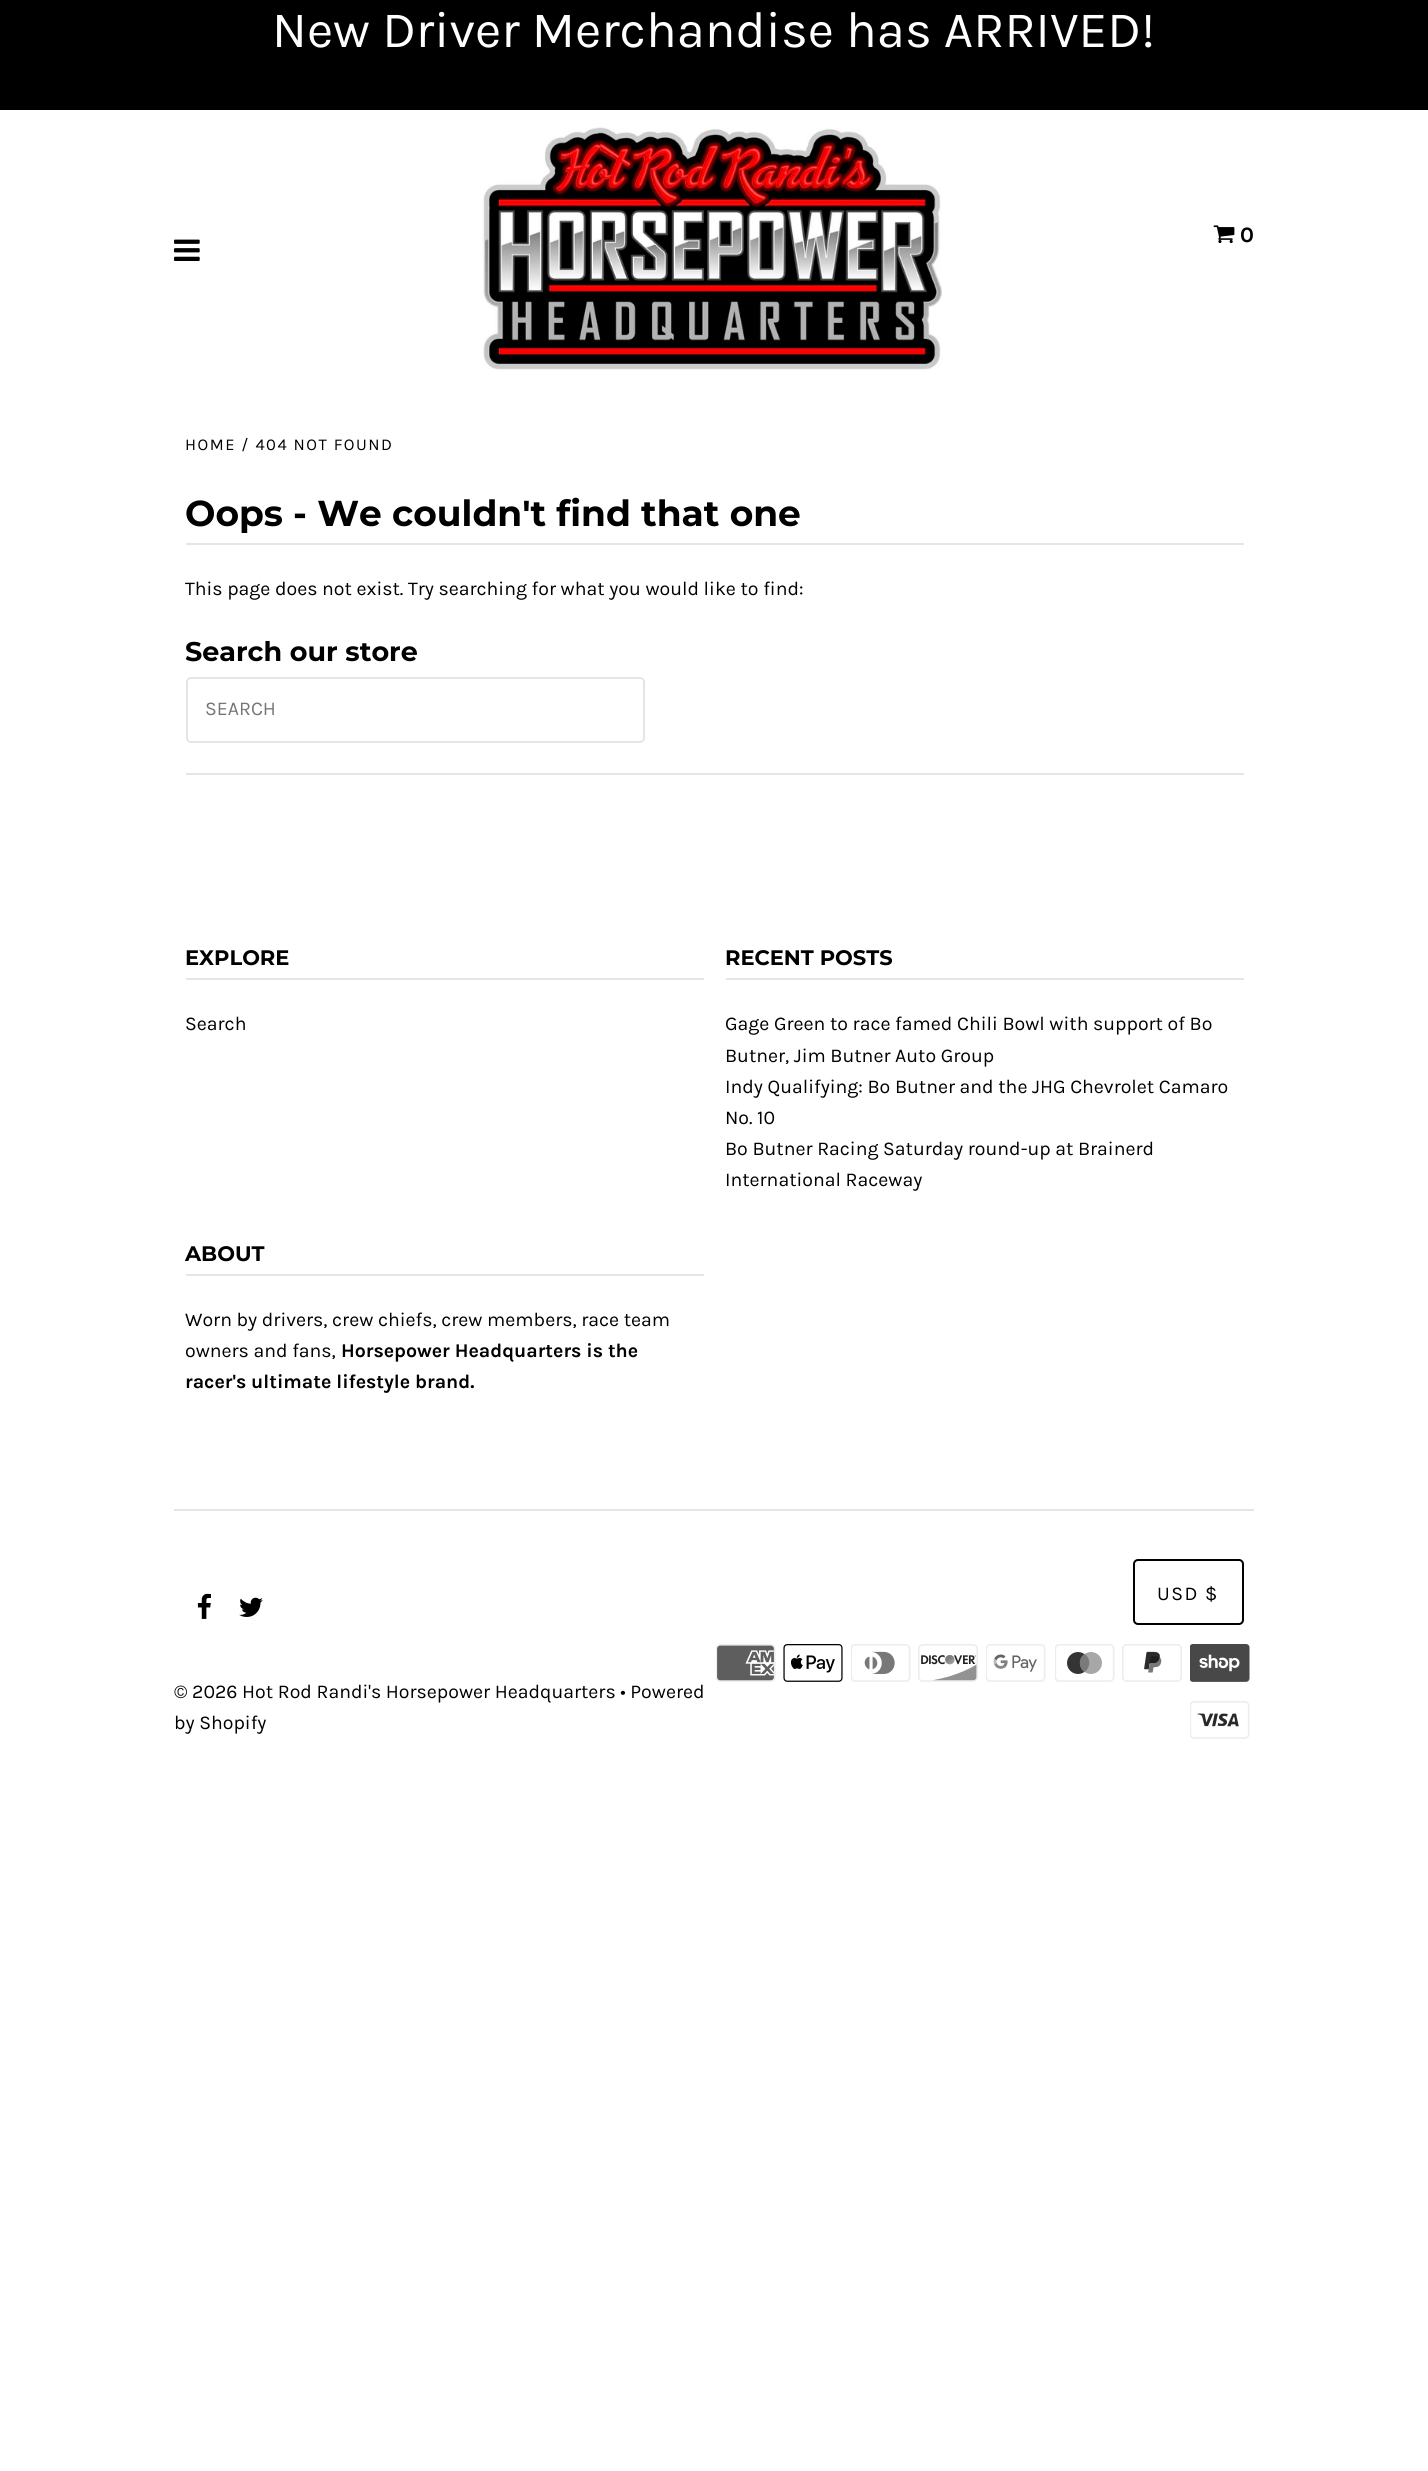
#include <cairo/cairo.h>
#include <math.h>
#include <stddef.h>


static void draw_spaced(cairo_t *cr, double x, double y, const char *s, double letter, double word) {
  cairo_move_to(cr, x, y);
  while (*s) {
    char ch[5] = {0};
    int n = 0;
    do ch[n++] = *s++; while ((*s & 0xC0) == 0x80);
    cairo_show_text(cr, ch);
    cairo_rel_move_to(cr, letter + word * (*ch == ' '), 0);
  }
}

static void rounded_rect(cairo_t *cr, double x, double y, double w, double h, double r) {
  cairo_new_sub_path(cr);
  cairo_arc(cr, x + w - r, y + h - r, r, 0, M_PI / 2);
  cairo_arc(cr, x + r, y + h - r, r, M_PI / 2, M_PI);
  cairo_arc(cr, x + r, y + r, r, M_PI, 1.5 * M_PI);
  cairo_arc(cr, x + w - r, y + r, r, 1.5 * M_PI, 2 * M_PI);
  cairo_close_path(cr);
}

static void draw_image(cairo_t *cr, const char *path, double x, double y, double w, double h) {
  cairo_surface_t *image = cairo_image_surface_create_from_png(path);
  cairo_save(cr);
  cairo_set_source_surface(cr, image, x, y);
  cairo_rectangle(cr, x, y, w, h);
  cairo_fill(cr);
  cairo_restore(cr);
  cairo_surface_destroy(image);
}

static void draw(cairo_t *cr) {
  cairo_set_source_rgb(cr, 1, 1, 1);
  cairo_paint(cr);
  cairo_set_source_rgb(cr, 0, 0, 0);
  cairo_rectangle(cr, 0, 0, 1428, 110);
  cairo_fill(cr);
  draw_image(cr, "images/1.png", 482, 127, 460, 243);
  draw_image(cr, "images/2.png", 1213, 225, 22, 19);
  draw_image(cr, "images/3.png", 174, 239, 26, 22);
  cairo_set_source_rgb(cr, 229 / 255.0, 229 / 255.0, 229 / 255.0);
  cairo_rectangle(cr, 186, 543, 1058, 2);
  cairo_fill(cr);
  cairo_rectangle(cr, 186, 773, 1058, 2);
  cairo_fill(cr);
  rounded_rect(cr, 187, 678, 457, 64, 4);
  cairo_stroke(cr);
  cairo_rectangle(cr, 186, 978, 518, 2);
  cairo_fill(cr);
  cairo_rectangle(cr, 726, 978, 518, 2);
  cairo_fill(cr);
  cairo_rectangle(cr, 186, 1274, 518, 2);
  cairo_fill(cr);
  cairo_rectangle(cr, 174, 1509, 1080, 2);
  cairo_fill(cr);
  rounded_rect(cr, 1134, 1560, 109, 64, 4);
  cairo_set_source_rgb(cr, 0, 0, 0);
  cairo_stroke(cr);
  draw_image(cr, "images/4.png", 716, 1644, 60, 38);
  draw_image(cr, "images/5.png", 783, 1644, 60, 38);
  draw_image(cr, "images/6.png", 851, 1644, 60, 38);
  draw_image(cr, "images/7.png", 918, 1644, 60, 38);
  draw_image(cr, "images/8.png", 986, 1644, 60, 38);
  draw_image(cr, "images/9.png", 1055, 1644, 60, 38);
  draw_image(cr, "images/10.png", 1122, 1644, 60, 38);
  draw_image(cr, "images/11.png", 1190, 1644, 60, 38);
  draw_image(cr, "images/12.png", 1190, 1701, 60, 38);
  draw_image(cr, "images/13.png", 197, 1593, 14, 26);
  draw_image(cr, "images/14.png", 239, 1597, 24, 20);
  cairo_select_font_face(cr, "Karla", CAIRO_FONT_SLANT_NORMAL, CAIRO_FONT_WEIGHT_NORMAL);
  cairo_set_font_size(cr, 51);
  cairo_set_source_rgb(cr, 1, 1, 1);
  cairo_move_to(cr, 272, 47);
  cairo_show_text(cr, "New Driver Merchandise has ARRIVED!");
  cairo_select_font_face(cr, "Karla", CAIRO_FONT_SLANT_NORMAL, CAIRO_FONT_WEIGHT_BOLD);
  cairo_set_font_size(cr, 22);
  cairo_set_source_rgb(cr, 0, 0, 0);
  cairo_move_to(cr, 1240, 242);
  cairo_show_text(cr, "0");
  cairo_select_font_face(cr, "Karla", CAIRO_FONT_SLANT_NORMAL, CAIRO_FONT_WEIGHT_NORMAL);
  cairo_set_font_size(cr, 16.5);
  draw_spaced(cr, 185, 450, "HOME / 404 NOT FOUND", 1.5, 0);
  cairo_select_font_face(cr, "Montserrat", CAIRO_FONT_SLANT_NORMAL, CAIRO_FONT_WEIGHT_BOLD);
  cairo_set_font_size(cr, 36);
  cairo_move_to(cr, 185, 526);
  cairo_show_text(cr, "Oops - We couldn't find that one");
  cairo_select_font_face(cr, "Karla", CAIRO_FONT_SLANT_NORMAL, CAIRO_FONT_WEIGHT_NORMAL);
  cairo_set_font_size(cr, 19.5);
  cairo_move_to(cr, 185, 595);
  cairo_show_text(cr, "This page does not exist. Try searching for what you would like to find:");
  cairo_select_font_face(cr, "Montserrat", CAIRO_FONT_SLANT_NORMAL, CAIRO_FONT_WEIGHT_BOLD);
  cairo_set_font_size(cr, 27);
  cairo_move_to(cr, 185, 661);
  cairo_show_text(cr, "Search our store");
  cairo_select_font_face(cr, "Karla", CAIRO_FONT_SLANT_NORMAL, CAIRO_FONT_WEIGHT_NORMAL);
  cairo_set_font_size(cr, 19.5);
  cairo_set_source_rgb(cr, 117 / 255.0, 117 / 255.0, 117 / 255.0);
  cairo_move_to(cr, 205, 715);
  cairo_show_text(cr, "SEARCH");
  cairo_select_font_face(cr, "Montserrat", CAIRO_FONT_SLANT_NORMAL, CAIRO_FONT_WEIGHT_BOLD);
  cairo_set_font_size(cr, 21);
  cairo_set_source_rgb(cr, 0, 0, 0);
  cairo_move_to(cr, 185, 965);
  cairo_show_text(cr, "EXPLORE");
  cairo_select_font_face(cr, "Karla", CAIRO_FONT_SLANT_NORMAL, CAIRO_FONT_WEIGHT_NORMAL);
  cairo_set_font_size(cr, 19.5);
  cairo_move_to(cr, 185, 1030);
  cairo_show_text(cr, "Search");
  cairo_select_font_face(cr, "Montserrat", CAIRO_FONT_SLANT_NORMAL, CAIRO_FONT_WEIGHT_BOLD);
  cairo_set_font_size(cr, 21);
  cairo_move_to(cr, 725, 965);
  cairo_show_text(cr, "RECENT POSTS");
  cairo_select_font_face(cr, "Karla", CAIRO_FONT_SLANT_NORMAL, CAIRO_FONT_WEIGHT_NORMAL);
  cairo_set_font_size(cr, 19.5);
  cairo_move_to(cr, 725, 1030);
  cairo_show_text(cr, "Gage Green to race famed Chili Bowl with support of Bo");
  cairo_move_to(cr, 725, 1062);
  cairo_show_text(cr, "Butner, Jim Butner Auto Group");
  cairo_move_to(cr, 725, 1093);
  cairo_show_text(cr, "Indy Qualifying: Bo Butner and the JHG Chevrolet Camaro");
  cairo_move_to(cr, 725, 1124);
  cairo_show_text(cr, "No. 10");
  cairo_move_to(cr, 725, 1155);
  cairo_show_text(cr, "Bo Butner Racing Saturday round-up at Brainerd");
  cairo_move_to(cr, 725, 1186);
  cairo_show_text(cr, "International Raceway");
  cairo_select_font_face(cr, "Montserrat", CAIRO_FONT_SLANT_NORMAL, CAIRO_FONT_WEIGHT_BOLD);
  cairo_set_font_size(cr, 21);
  cairo_move_to(cr, 185, 1261);
  cairo_show_text(cr, "ABOUT");
  cairo_select_font_face(cr, "Karla", CAIRO_FONT_SLANT_NORMAL, CAIRO_FONT_WEIGHT_NORMAL);
  cairo_set_font_size(cr, 19.5);
  cairo_move_to(cr, 185, 1326);
  cairo_show_text(cr, "Worn by drivers, crew chiefs, crew members, race team");
  cairo_move_to(cr, 185, 1357);
  cairo_show_text(cr, "owners and fans,");
  cairo_select_font_face(cr, "Karla", CAIRO_FONT_SLANT_NORMAL, CAIRO_FONT_WEIGHT_BOLD);
  cairo_move_to(cr, 341, 1357);
  cairo_show_text(cr, "Horsepower Headquarters is the");
  cairo_move_to(cr, 185, 1388);
  cairo_show_text(cr, "racer's ultimate lifestyle brand.");
  cairo_select_font_face(cr, "Karla", CAIRO_FONT_SLANT_NORMAL, CAIRO_FONT_WEIGHT_NORMAL);
  draw_spaced(cr, 1157, 1600, "USD $", 1.5, 0);
  cairo_move_to(cr, 174, 1698);
  cairo_show_text(cr, "© 2026 Hot Rod Randi's Horsepower Headquarters • Powered");
  cairo_move_to(cr, 174, 1729);
  cairo_show_text(cr, "by Shopify");
}

int main(void) {
  cairo_surface_t *surface = cairo_image_surface_create(CAIRO_FORMAT_RGB24, 1428, 2471);
  cairo_t *cr = cairo_create(surface);
  cairo_font_options_t *options = cairo_font_options_create();
  cairo_font_options_set_hint_metrics(options, CAIRO_HINT_METRICS_OFF);
  cairo_font_options_set_hint_style(options, CAIRO_HINT_STYLE_NONE);
  cairo_set_font_options(cr, options);
  cairo_set_miter_limit(cr, 4);
  draw(cr);
  cairo_surface_write_to_png(surface, "out.png");
  cairo_font_options_destroy(options);
  cairo_destroy(cr);
  cairo_surface_destroy(surface);
  return 0;
}
